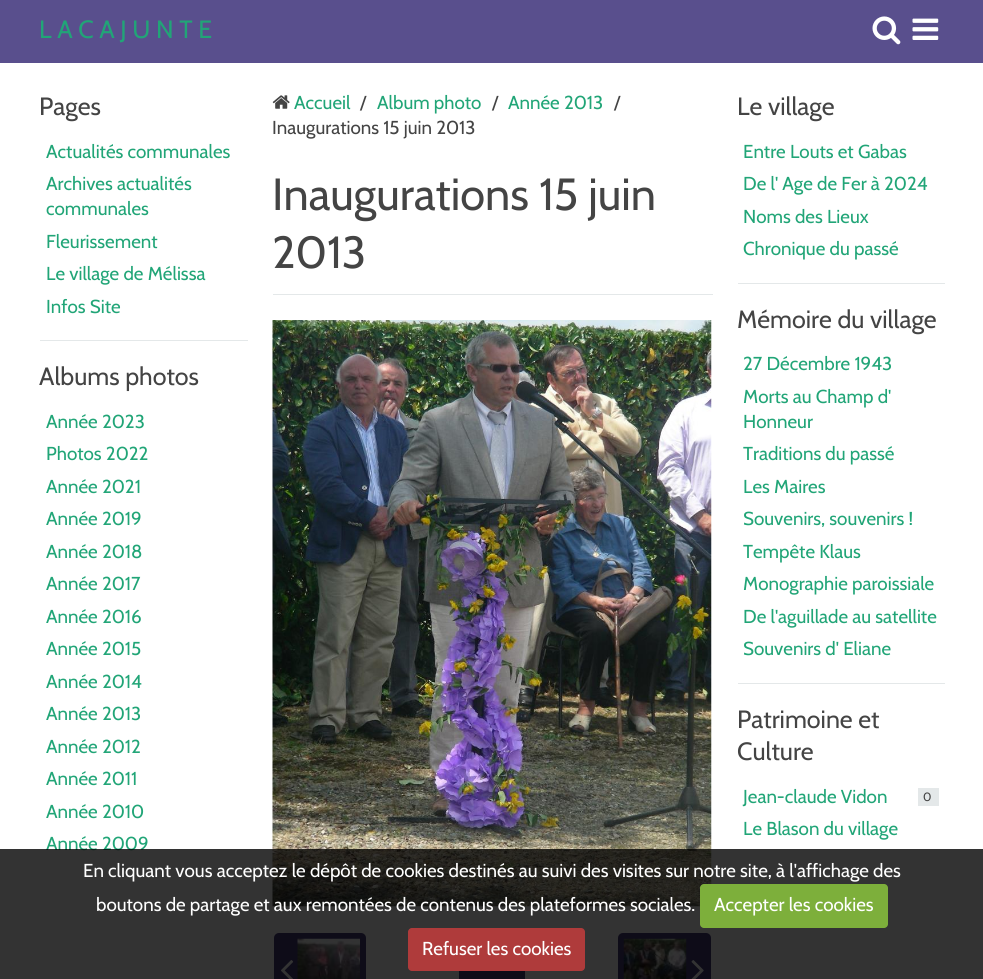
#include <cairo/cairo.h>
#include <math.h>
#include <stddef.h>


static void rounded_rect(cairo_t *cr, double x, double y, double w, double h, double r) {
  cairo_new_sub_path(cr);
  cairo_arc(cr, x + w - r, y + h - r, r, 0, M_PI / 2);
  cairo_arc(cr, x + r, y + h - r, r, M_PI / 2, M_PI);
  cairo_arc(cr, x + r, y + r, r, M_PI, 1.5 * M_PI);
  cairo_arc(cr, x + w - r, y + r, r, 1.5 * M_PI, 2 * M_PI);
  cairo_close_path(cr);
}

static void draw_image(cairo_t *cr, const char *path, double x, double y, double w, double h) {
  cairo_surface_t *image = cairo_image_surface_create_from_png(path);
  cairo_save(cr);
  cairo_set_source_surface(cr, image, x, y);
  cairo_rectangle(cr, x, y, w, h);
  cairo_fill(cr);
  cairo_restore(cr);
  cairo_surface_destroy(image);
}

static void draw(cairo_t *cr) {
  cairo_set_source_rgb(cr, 1, 1, 1);
  cairo_paint(cr);
  cairo_set_source_rgb(cr, 89 / 255.0, 79 / 255.0, 141 / 255.0);
  cairo_rectangle(cr, 0, 0, 983, 63);
  cairo_fill(cr);
  draw_image(cr, "images/1.png", 872, 16, 29, 29);
  draw_image(cr, "images/2.png", 912, 18, 27, 22);
  cairo_set_source_rgb(cr, 228 / 255.0, 232 / 255.0, 233 / 255.0);
  cairo_rectangle(cr, 40, 340, 208, 1);
  cairo_fill(cr);
  draw_image(cr, "images/3.png", 272, 95, 18, 14);
  cairo_rectangle(cr, 273, 294, 440, 1);
  cairo_fill(cr);
  draw_image(cr, "images/4.png", 272, 320, 440, 587);
  cairo_set_source_rgb(cr, 70 / 255.0, 59 / 255.0, 122 / 255.0);
  rounded_rect(cr, 274, 933, 92, 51, 5);
  cairo_fill(cr);
  draw_image(cr, "images/5.png", 281, 960, 13, 19);
  draw_image(cr, "images/6.png", 297, 938, 63, 41);
  cairo_rectangle(cr, 459, 971, 66, 8);
  cairo_fill(cr);
  rounded_rect(cr, 618, 933, 93, 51, 5);
  cairo_fill(cr);
  draw_image(cr, "images/7.png", 623, 938, 64, 41);
  draw_image(cr, "images/8.png", 691, 960, 13, 19);
  cairo_set_source_rgb(cr, 228 / 255.0, 232 / 255.0, 233 / 255.0);
  cairo_rectangle(cr, 738, 283, 207, 1);
  cairo_fill(cr);
  cairo_rectangle(cr, 738, 683, 207, 1);
  cairo_fill(cr);
  cairo_rectangle(cr, 918, 788, 21, 18);
  cairo_fill(cr);
  cairo_select_font_face(cr, "Cabin", CAIRO_FONT_SLANT_NORMAL, CAIRO_FONT_WEIGHT_NORMAL);
  cairo_set_font_size(cr, 25);
  cairo_set_source_rgb(cr, 33 / 255.0, 165 / 255.0, 119 / 255.0);
  cairo_move_to(cr, 39, 38);
  cairo_show_text(cr, "L A C A J U N T E");
  cairo_set_source_rgb(cr, 68 / 255.0, 68 / 255.0, 68 / 255.0);
  cairo_move_to(cr, 39, 115);
  cairo_show_text(cr, "Pages");
  cairo_set_font_size(cr, 18.75);
  cairo_set_source_rgb(cr, 33 / 255.0, 165 / 255.0, 119 / 255.0);
  cairo_move_to(cr, 46, 158);
  cairo_show_text(cr, "Actualités communales");
  cairo_move_to(cr, 46, 190);
  cairo_show_text(cr, "Archives actualités");
  cairo_move_to(cr, 46, 215);
  cairo_show_text(cr, "communales");
  cairo_move_to(cr, 46, 248);
  cairo_show_text(cr, "Fleurissement");
  cairo_move_to(cr, 46, 280);
  cairo_show_text(cr, "Le village de Mélissa");
  cairo_move_to(cr, 46, 313);
  cairo_show_text(cr, "Infos Site");
  cairo_set_font_size(cr, 25);
  cairo_set_source_rgb(cr, 68 / 255.0, 68 / 255.0, 68 / 255.0);
  cairo_move_to(cr, 39, 385);
  cairo_show_text(cr, "Albums photos");
  cairo_set_font_size(cr, 18.75);
  cairo_set_source_rgb(cr, 33 / 255.0, 165 / 255.0, 119 / 255.0);
  cairo_move_to(cr, 46, 428);
  cairo_show_text(cr, "Année 2023");
  cairo_move_to(cr, 46, 460);
  cairo_show_text(cr, "Photos 2022");
  cairo_move_to(cr, 46, 493);
  cairo_show_text(cr, "Année 2021");
  cairo_move_to(cr, 46, 525);
  cairo_show_text(cr, "Année 2019");
  cairo_move_to(cr, 46, 558);
  cairo_show_text(cr, "Année 2018");
  cairo_move_to(cr, 46, 590);
  cairo_show_text(cr, "Année 2017");
  cairo_move_to(cr, 46, 623);
  cairo_show_text(cr, "Année 2016");
  cairo_move_to(cr, 46, 655);
  cairo_show_text(cr, "Année 2015");
  cairo_move_to(cr, 46, 688);
  cairo_show_text(cr, "Année 2014");
  cairo_move_to(cr, 46, 720);
  cairo_show_text(cr, "Année 2013");
  cairo_move_to(cr, 46, 753);
  cairo_show_text(cr, "Année 2012");
  cairo_move_to(cr, 46, 785);
  cairo_show_text(cr, "Année 2011");
  cairo_move_to(cr, 46, 818);
  cairo_show_text(cr, "Année 2010");
  cairo_move_to(cr, 46, 850);
  cairo_show_text(cr, "Année 2009");
  cairo_move_to(cr, 294, 109);
  cairo_show_text(cr, "Accueil");
  cairo_set_source_rgb(cr, 68 / 255.0, 68 / 255.0, 68 / 255.0);
  cairo_move_to(cr, 360, 109);
  cairo_show_text(cr, "/");
  cairo_set_source_rgb(cr, 33 / 255.0, 165 / 255.0, 119 / 255.0);
  cairo_move_to(cr, 377, 109);
  cairo_show_text(cr, "Album photo");
  cairo_set_source_rgb(cr, 68 / 255.0, 68 / 255.0, 68 / 255.0);
  cairo_move_to(cr, 492, 109);
  cairo_show_text(cr, "/");
  cairo_set_source_rgb(cr, 33 / 255.0, 165 / 255.0, 119 / 255.0);
  cairo_move_to(cr, 508, 109);
  cairo_show_text(cr, "Année 2013");
  cairo_set_source_rgb(cr, 68 / 255.0, 68 / 255.0, 68 / 255.0);
  cairo_move_to(cr, 614, 109);
  cairo_show_text(cr, "/");
  cairo_move_to(cr, 272, 134);
  cairo_show_text(cr, "Inaugurations 15 juin 2013");
  cairo_set_font_size(cr, 45);
  cairo_move_to(cr, 272, 210);
  cairo_show_text(cr, "Inaugurations 15 juin");
  cairo_move_to(cr, 272, 268);
  cairo_show_text(cr, "2013");
  cairo_set_font_size(cr, 25);
  cairo_move_to(cr, 737, 115);
  cairo_show_text(cr, "Le village");
  cairo_set_font_size(cr, 18.75);
  cairo_set_source_rgb(cr, 33 / 255.0, 165 / 255.0, 119 / 255.0);
  cairo_move_to(cr, 743, 158);
  cairo_show_text(cr, "Entre Louts et Gabas");
  cairo_move_to(cr, 743, 190);
  cairo_show_text(cr, "De l' Age de Fer à 2024");
  cairo_move_to(cr, 743, 223);
  cairo_show_text(cr, "Noms des Lieux");
  cairo_move_to(cr, 743, 255);
  cairo_show_text(cr, "Chronique du passé");
  cairo_set_font_size(cr, 25);
  cairo_set_source_rgb(cr, 68 / 255.0, 68 / 255.0, 68 / 255.0);
  cairo_move_to(cr, 737, 328);
  cairo_show_text(cr, "Mémoire du village");
  cairo_set_font_size(cr, 18.75);
  cairo_set_source_rgb(cr, 33 / 255.0, 165 / 255.0, 119 / 255.0);
  cairo_move_to(cr, 743, 370);
  cairo_show_text(cr, "27 Décembre 1943");
  cairo_move_to(cr, 743, 403);
  cairo_show_text(cr, "Morts au Champ d'");
  cairo_move_to(cr, 743, 428);
  cairo_show_text(cr, "Honneur");
  cairo_move_to(cr, 743, 460);
  cairo_show_text(cr, "Traditions du passé");
  cairo_move_to(cr, 743, 493);
  cairo_show_text(cr, "Les Maires");
  cairo_move_to(cr, 743, 525);
  cairo_show_text(cr, "Souvenirs, souvenirs !");
  cairo_move_to(cr, 743, 558);
  cairo_show_text(cr, "Tempête Klaus");
  cairo_move_to(cr, 743, 590);
  cairo_show_text(cr, "Monographie paroissiale");
  cairo_move_to(cr, 743, 623);
  cairo_show_text(cr, "De l'aguillade au satellite");
  cairo_move_to(cr, 743, 655);
  cairo_show_text(cr, "Souvenirs d' Eliane");
  cairo_set_font_size(cr, 25);
  cairo_set_source_rgb(cr, 68 / 255.0, 68 / 255.0, 68 / 255.0);
  cairo_move_to(cr, 737, 728);
  cairo_show_text(cr, "Patrimoine et");
  cairo_move_to(cr, 737, 760);
  cairo_show_text(cr, "Culture");
  cairo_set_font_size(cr, 18.75);
  cairo_set_source_rgb(cr, 33 / 255.0, 165 / 255.0, 119 / 255.0);
  cairo_move_to(cr, 743, 803);
  cairo_show_text(cr, "Jean-claude Vidon");
  cairo_set_font_size(cr, 12);
  cairo_set_source_rgb(cr, 68 / 255.0, 68 / 255.0, 68 / 255.0);
  cairo_move_to(cr, 923, 801);
  cairo_show_text(cr, "0");
  cairo_set_font_size(cr, 18.75);
  cairo_set_source_rgb(cr, 33 / 255.0, 165 / 255.0, 119 / 255.0);
  cairo_move_to(cr, 743, 835);
  cairo_show_text(cr, "Le Blason du village");
  cairo_set_source_rgba(cr, 0, 0, 0, 0.8);
  cairo_rectangle(cr, 0, 849, 983, 130);
  cairo_fill(cr);
  cairo_set_source_rgb(cr, 1, 1, 1);
  cairo_move_to(cr, 83, 877);
  cairo_show_text(cr, "En cliquant vous acceptez le dépôt de cookies destinés au suivi des visites sur notre site, à l'affichage des");
  cairo_move_to(cr, 96, 911);
  cairo_show_text(cr, "boutons de partage et aux remontées de contenus des plateformes sociales.");
  cairo_set_source_rgb(cr, 125 / 255.0, 175 / 255.0, 59 / 255.0);
  rounded_rect(cr, 700, 884, 188, 44, 4);
  cairo_fill(cr);
  cairo_set_source_rgb(cr, 1, 1, 1);
  cairo_move_to(cr, 714, 911);
  cairo_show_text(cr, "Accepter les cookies");
  cairo_set_source_rgb(cr, 175 / 255.0, 59 / 255.0, 59 / 255.0);
  rounded_rect(cr, 408, 928, 177, 43, 4);
  cairo_fill(cr);
  cairo_set_source_rgb(cr, 1, 1, 1);
  cairo_move_to(cr, 422, 955);
  cairo_show_text(cr, "Refuser les cookies");
}

int main(void) {
  cairo_surface_t *surface = cairo_image_surface_create(CAIRO_FORMAT_RGB24, 983, 979);
  cairo_t *cr = cairo_create(surface);
  cairo_font_options_t *options = cairo_font_options_create();
  cairo_font_options_set_hint_metrics(options, CAIRO_HINT_METRICS_OFF);
  cairo_font_options_set_hint_style(options, CAIRO_HINT_STYLE_NONE);
  cairo_set_font_options(cr, options);
  cairo_set_miter_limit(cr, 4);
  draw(cr);
  cairo_surface_write_to_png(surface, "out.png");
  cairo_font_options_destroy(options);
  cairo_destroy(cr);
  cairo_surface_destroy(surface);
  return 0;
}
